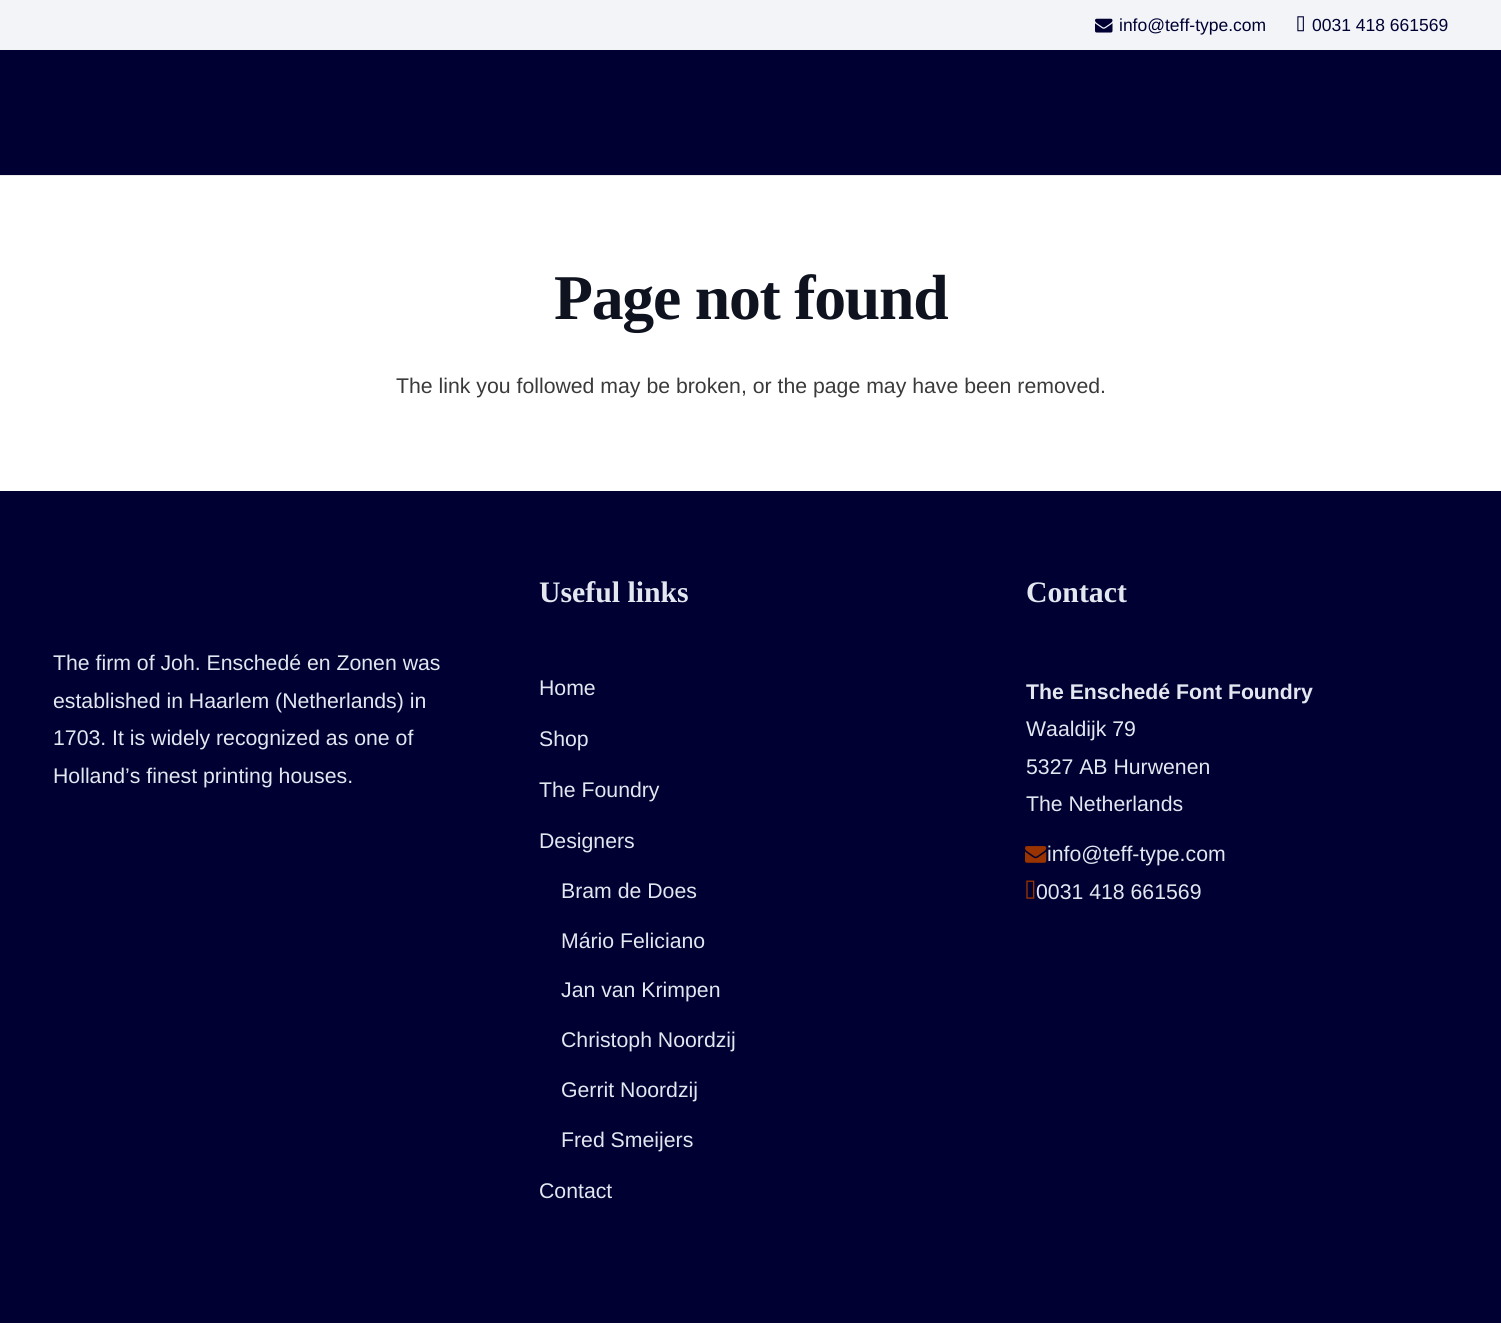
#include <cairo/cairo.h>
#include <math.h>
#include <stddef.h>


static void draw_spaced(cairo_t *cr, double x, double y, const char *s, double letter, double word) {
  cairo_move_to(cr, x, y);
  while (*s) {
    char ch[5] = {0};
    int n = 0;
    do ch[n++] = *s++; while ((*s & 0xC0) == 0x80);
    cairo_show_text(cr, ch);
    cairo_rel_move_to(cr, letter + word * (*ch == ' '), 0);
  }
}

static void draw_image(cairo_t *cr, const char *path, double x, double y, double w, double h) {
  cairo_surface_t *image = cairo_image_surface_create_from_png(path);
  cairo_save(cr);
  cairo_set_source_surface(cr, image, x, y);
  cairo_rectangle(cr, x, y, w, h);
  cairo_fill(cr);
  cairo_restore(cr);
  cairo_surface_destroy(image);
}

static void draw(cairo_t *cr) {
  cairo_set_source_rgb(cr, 1, 1, 1);
  cairo_paint(cr);
  cairo_set_source_rgb(cr, 242 / 255.0, 244 / 255.0, 247 / 255.0);
  cairo_rectangle(cr, 0, 0, 1501, 50);
  cairo_fill(cr);
  draw_image(cr, "images/1.png", 1095, 18, 18, 15);
  draw_image(cr, "images/2.png", 1297, 16, 7, 16);
  cairo_set_source_rgb(cr, 235 / 255.0, 235 / 255.0, 235 / 255.0);
  cairo_rectangle(cr, 0, 175, 1501, 1);
  cairo_fill(cr);
  cairo_set_source_rgb(cr, 0, 0, 51 / 255.0);
  cairo_rectangle(cr, 0, 50, 1501, 125);
  cairo_fill(cr);
  cairo_rectangle(cr, 0, 491, 1501, 832);
  cairo_fill(cr);
  draw_image(cr, "images/3.png", 1025, 846, 22, 17);
  draw_image(cr, "images/4.png", 1026, 880, 9, 19);
  cairo_select_font_face(cr, "Liberation Sans", CAIRO_FONT_SLANT_NORMAL, CAIRO_FONT_WEIGHT_NORMAL);
  cairo_set_font_size(cr, 17.5);
  cairo_move_to(cr, 1119, 31);
  cairo_show_text(cr, "info@teff-type.com");
  cairo_move_to(cr, 1312, 31);
  cairo_show_text(cr, "0031 418 661569");
  cairo_select_font_face(cr, "Liberation Serif", CAIRO_FONT_SLANT_NORMAL, CAIRO_FONT_WEIGHT_BOLD);
  cairo_set_font_size(cr, 63.75);
  cairo_set_source_rgb(cr, 15 / 255.0, 19 / 255.0, 31 / 255.0);
  draw_spaced(cr, 554, 319, "Page not found", -1.25, 0);
  cairo_select_font_face(cr, "Liberation Sans", CAIRO_FONT_SLANT_NORMAL, CAIRO_FONT_WEIGHT_NORMAL);
  cairo_set_font_size(cr, 21.25);
  cairo_set_source_rgb(cr, 58 / 255.0, 58 / 255.0, 58 / 255.0);
  cairo_move_to(cr, 396, 393);
  cairo_show_text(cr, "The link you followed may be broken, or the page may have been removed.");
  cairo_set_source_rgb(cr, 227 / 255.0, 231 / 255.0, 240 / 255.0);
  cairo_move_to(cr, 53, 670);
  cairo_show_text(cr, "The firm of Joh. Enschedé en Zonen was");
  cairo_move_to(cr, 53, 708);
  cairo_show_text(cr, "established in Haarlem (Netherlands) in");
  cairo_move_to(cr, 53, 745);
  cairo_show_text(cr, "1703. It is widely recognized as one of");
  cairo_move_to(cr, 53, 783);
  cairo_show_text(cr, "Holland’s finest printing houses.");
  cairo_select_font_face(cr, "Liberation Serif", CAIRO_FONT_SLANT_NORMAL, CAIRO_FONT_WEIGHT_BOLD);
  cairo_set_font_size(cr, 29.75);
  cairo_move_to(cr, 539, 602);
  cairo_show_text(cr, "Useful links");
  cairo_select_font_face(cr, "Liberation Sans", CAIRO_FONT_SLANT_NORMAL, CAIRO_FONT_WEIGHT_NORMAL);
  cairo_set_font_size(cr, 21.25);
  cairo_move_to(cr, 539, 695);
  cairo_show_text(cr, "Home");
  cairo_move_to(cr, 539, 746);
  cairo_show_text(cr, "Shop");
  cairo_move_to(cr, 539, 797);
  cairo_show_text(cr, "The Foundry");
  cairo_move_to(cr, 539, 848);
  cairo_show_text(cr, "Designers");
  cairo_move_to(cr, 561, 898);
  cairo_show_text(cr, "Bram de Does");
  cairo_move_to(cr, 561, 948);
  cairo_show_text(cr, "Mário Feliciano");
  cairo_move_to(cr, 561, 997);
  cairo_show_text(cr, "Jan van Krimpen");
  cairo_move_to(cr, 561, 1047);
  cairo_show_text(cr, "Christoph Noordzij");
  cairo_move_to(cr, 561, 1097);
  cairo_show_text(cr, "Gerrit Noordzij");
  cairo_move_to(cr, 561, 1147);
  cairo_show_text(cr, "Fred Smeijers");
  cairo_move_to(cr, 539, 1198);
  cairo_show_text(cr, "Contact");
  cairo_select_font_face(cr, "Liberation Serif", CAIRO_FONT_SLANT_NORMAL, CAIRO_FONT_WEIGHT_BOLD);
  cairo_set_font_size(cr, 29.75);
  cairo_move_to(cr, 1026, 602);
  cairo_show_text(cr, "Contact");
  cairo_select_font_face(cr, "Liberation Sans", CAIRO_FONT_SLANT_NORMAL, CAIRO_FONT_WEIGHT_BOLD);
  cairo_set_font_size(cr, 21.25);
  cairo_move_to(cr, 1026, 699);
  cairo_show_text(cr, "The Enschedé Font Foundry");
  cairo_select_font_face(cr, "Liberation Sans", CAIRO_FONT_SLANT_NORMAL, CAIRO_FONT_WEIGHT_NORMAL);
  cairo_move_to(cr, 1026, 736);
  cairo_show_text(cr, "Waaldijk 79");
  cairo_move_to(cr, 1026, 774);
  cairo_show_text(cr, "5327 AB Hurwenen");
  cairo_move_to(cr, 1026, 811);
  cairo_show_text(cr, "The Netherlands");
  cairo_move_to(cr, 1047, 861);
  cairo_show_text(cr, "info@teff-type.com");
  cairo_move_to(cr, 1036, 899);
  cairo_show_text(cr, "0031 418 661569");
}

int main(void) {
  cairo_surface_t *surface = cairo_image_surface_create(CAIRO_FORMAT_RGB24, 1501, 1325);
  cairo_t *cr = cairo_create(surface);
  cairo_font_options_t *options = cairo_font_options_create();
  cairo_font_options_set_hint_metrics(options, CAIRO_HINT_METRICS_OFF);
  cairo_font_options_set_hint_style(options, CAIRO_HINT_STYLE_NONE);
  cairo_set_font_options(cr, options);
  cairo_set_miter_limit(cr, 4);
  draw(cr);
  cairo_surface_write_to_png(surface, "out.png");
  cairo_font_options_destroy(options);
  cairo_destroy(cr);
  cairo_surface_destroy(surface);
  return 0;
}
